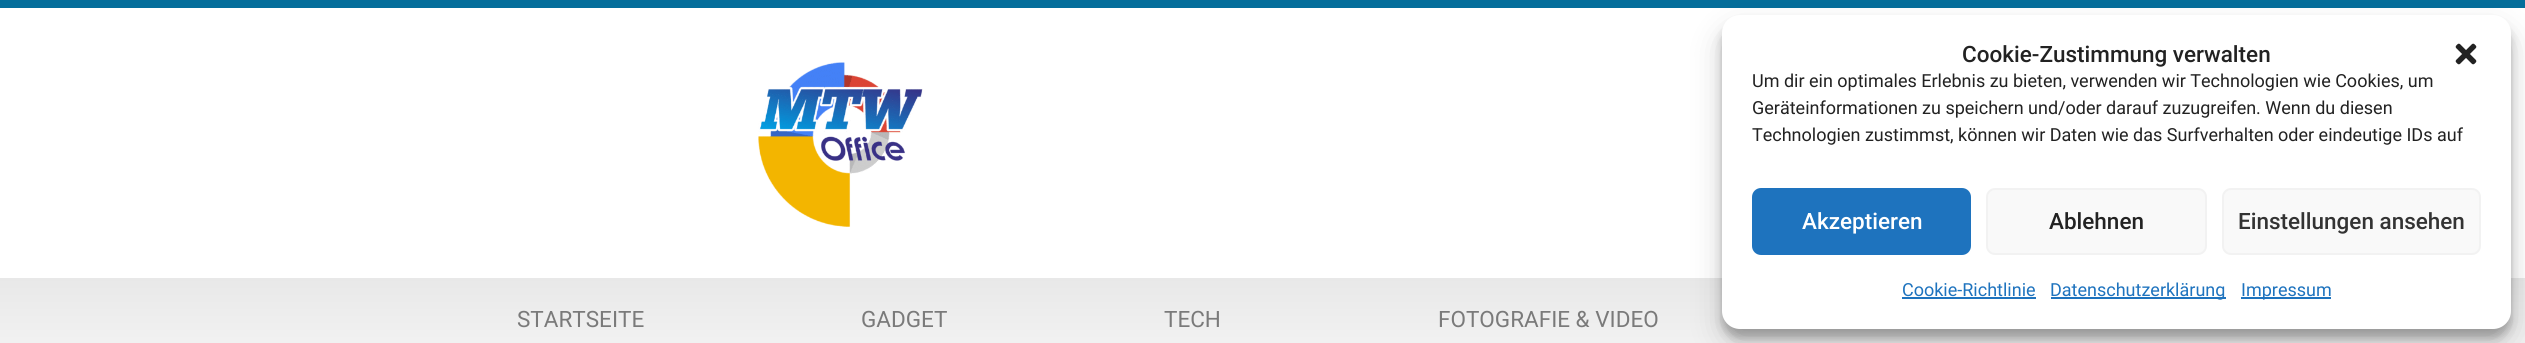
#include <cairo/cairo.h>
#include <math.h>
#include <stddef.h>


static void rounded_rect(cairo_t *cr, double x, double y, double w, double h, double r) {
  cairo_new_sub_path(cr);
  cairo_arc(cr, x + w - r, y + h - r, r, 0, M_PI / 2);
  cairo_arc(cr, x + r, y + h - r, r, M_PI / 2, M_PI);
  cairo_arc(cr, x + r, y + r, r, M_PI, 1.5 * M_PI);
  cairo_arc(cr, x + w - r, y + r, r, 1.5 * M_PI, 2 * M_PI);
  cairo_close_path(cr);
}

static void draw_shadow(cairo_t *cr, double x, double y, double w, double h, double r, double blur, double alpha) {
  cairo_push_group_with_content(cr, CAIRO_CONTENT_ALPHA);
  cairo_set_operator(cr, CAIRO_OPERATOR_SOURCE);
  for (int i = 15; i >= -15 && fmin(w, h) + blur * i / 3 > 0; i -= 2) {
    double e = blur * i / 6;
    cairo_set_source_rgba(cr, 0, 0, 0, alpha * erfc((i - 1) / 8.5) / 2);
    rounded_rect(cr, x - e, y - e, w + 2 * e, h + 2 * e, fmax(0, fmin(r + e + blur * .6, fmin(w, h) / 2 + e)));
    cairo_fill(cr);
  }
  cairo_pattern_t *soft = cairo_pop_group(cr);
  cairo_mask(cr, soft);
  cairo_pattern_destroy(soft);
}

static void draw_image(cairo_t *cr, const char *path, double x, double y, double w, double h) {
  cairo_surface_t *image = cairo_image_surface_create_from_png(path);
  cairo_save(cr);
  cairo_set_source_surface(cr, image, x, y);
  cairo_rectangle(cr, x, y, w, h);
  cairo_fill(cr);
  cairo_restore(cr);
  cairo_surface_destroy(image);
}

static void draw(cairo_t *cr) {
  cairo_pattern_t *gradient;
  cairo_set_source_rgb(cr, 1, 1, 1);
  cairo_paint(cr);
  gradient = cairo_pattern_create_linear(1263, 277, 1263, 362);
  cairo_pattern_add_color_stop_rgba(gradient, 0, 232 / 255.0, 232 / 255.0, 232 / 255.0, 1);
  cairo_pattern_add_color_stop_rgba(gradient, 1, 244 / 255.0, 244 / 255.0, 244 / 255.0, 1);
  cairo_set_source(cr, gradient);
  cairo_pattern_destroy(gradient);
  cairo_rectangle(cr, 0, 278, 2525, 65);
  cairo_fill(cr);
  cairo_set_source_rgb(cr, 0, 0, 0);
  draw_shadow(cr, 1722, 24, 789, 314, 18, 4.5, 0.23);
  cairo_set_source_rgb(cr, 5 / 255.0, 110 / 255.0, 155 / 255.0);
  cairo_rectangle(cr, 0, 0, 2525, 8);
  cairo_fill(cr);
  cairo_set_source_rgb(cr, 0, 0, 0);
  draw_shadow(cr, 1722, 30, 789, 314, 18, 15, 0.19);
  cairo_set_source_rgb(cr, 1, 1, 1);
  rounded_rect(cr, 1722, 15, 789, 314, 18);
  cairo_fill(cr);
  draw_image(cr, "images/1.png", 2455, 43, 22, 22);
  cairo_set_source_rgb(cr, 30 / 255.0, 115 / 255.0, 190 / 255.0);
  rounded_rect(cr, 1753, 189, 217, 65, 8);
  cairo_fill_preserve(cr);
  cairo_stroke(cr);
  cairo_set_source_rgb(cr, 249 / 255.0, 249 / 255.0, 249 / 255.0);
  rounded_rect(cr, 1987, 189, 219, 65, 8);
  cairo_fill_preserve(cr);
  cairo_set_source_rgb(cr, 242 / 255.0, 242 / 255.0, 242 / 255.0);
  cairo_stroke(cr);
  cairo_set_source_rgb(cr, 249 / 255.0, 249 / 255.0, 249 / 255.0);
  rounded_rect(cr, 2223, 189, 257, 65, 8);
  cairo_fill_preserve(cr);
  cairo_set_source_rgb(cr, 242 / 255.0, 242 / 255.0, 242 / 255.0);
  cairo_stroke(cr);
  cairo_set_source_rgb(cr, 30 / 255.0, 115 / 255.0, 190 / 255.0);
  cairo_rectangle(cr, 1902, 297, 134, 2);
  cairo_fill(cr);
  cairo_rectangle(cr, 2051, 297, 175, 2);
  cairo_fill(cr);
  cairo_rectangle(cr, 2241, 297, 90, 2);
  cairo_fill(cr);
  draw_image(cr, "images/2.png", 758, 62, 165, 165);
  cairo_select_font_face(cr, "Roboto Medium", CAIRO_FONT_SLANT_NORMAL, CAIRO_FONT_WEIGHT_NORMAL);
  cairo_set_font_size(cr, 22.5);
  cairo_set_source_rgb(cr, 34 / 255.0, 34 / 255.0, 34 / 255.0);
  cairo_move_to(cr, 1962, 62);
  cairo_show_text(cr, "Cookie-Zustimmung verwalten");
  cairo_select_font_face(cr, "Roboto", CAIRO_FONT_SLANT_NORMAL, CAIRO_FONT_WEIGHT_NORMAL);
  cairo_set_font_size(cr, 18);
  cairo_move_to(cr, 1752, 87);
  cairo_show_text(cr, "Um dir ein optimales Erlebnis zu bieten, verwenden wir Technologien wie Cookies, um");
  cairo_move_to(cr, 1752, 114);
  cairo_show_text(cr, "Geräteinformationen zu speichern und/oder darauf zuzugreifen. Wenn du diesen");
  cairo_move_to(cr, 1752, 141);
  cairo_show_text(cr, "Technologien zustimmst, können wir Daten wie das Surfverhalten oder eindeutige IDs auf");
  cairo_select_font_face(cr, "Roboto Medium", CAIRO_FONT_SLANT_NORMAL, CAIRO_FONT_WEIGHT_NORMAL);
  cairo_set_font_size(cr, 22.5);
  cairo_set_source_rgb(cr, 1, 1, 1);
  cairo_move_to(cr, 1802, 229);
  cairo_show_text(cr, "Akzeptieren");
  cairo_set_source_rgb(cr, 34 / 255.0, 34 / 255.0, 34 / 255.0);
  cairo_move_to(cr, 2049, 229);
  cairo_show_text(cr, "Ablehnen");
  cairo_set_source_rgb(cr, 51 / 255.0, 51 / 255.0, 51 / 255.0);
  cairo_move_to(cr, 2238, 229);
  cairo_show_text(cr, "Einstellungen ansehen");
  cairo_select_font_face(cr, "Roboto", CAIRO_FONT_SLANT_NORMAL, CAIRO_FONT_WEIGHT_NORMAL);
  cairo_set_font_size(cr, 18);
  cairo_set_source_rgb(cr, 30 / 255.0, 115 / 255.0, 190 / 255.0);
  cairo_move_to(cr, 1902, 296);
  cairo_show_text(cr, "Cookie-Richtlinie");
  cairo_move_to(cr, 2050, 296);
  cairo_show_text(cr, "Datenschutzerklärung");
  cairo_move_to(cr, 2241, 296);
  cairo_show_text(cr, "Impressum");
  cairo_set_font_size(cr, 22.5);
  cairo_set_source_rgb(cr, 122 / 255.0, 122 / 255.0, 122 / 255.0);
  cairo_move_to(cr, 517, 327);
  cairo_show_text(cr, "STARTSEITE");
  cairo_move_to(cr, 861, 327);
  cairo_show_text(cr, "GADGET");
  cairo_move_to(cr, 1164, 327);
  cairo_show_text(cr, "TECH");
  cairo_move_to(cr, 1438, 327);
  cairo_show_text(cr, "FOTOGRAFIE & VIDEO");
}

int main(void) {
  cairo_surface_t *surface = cairo_image_surface_create(CAIRO_FORMAT_RGB24, 2525, 343);
  cairo_t *cr = cairo_create(surface);
  cairo_font_options_t *options = cairo_font_options_create();
  cairo_font_options_set_hint_metrics(options, CAIRO_HINT_METRICS_OFF);
  cairo_font_options_set_hint_style(options, CAIRO_HINT_STYLE_NONE);
  cairo_set_font_options(cr, options);
  cairo_set_miter_limit(cr, 4);
  draw(cr);
  cairo_surface_write_to_png(surface, "out.png");
  cairo_font_options_destroy(options);
  cairo_destroy(cr);
  cairo_surface_destroy(surface);
  return 0;
}
